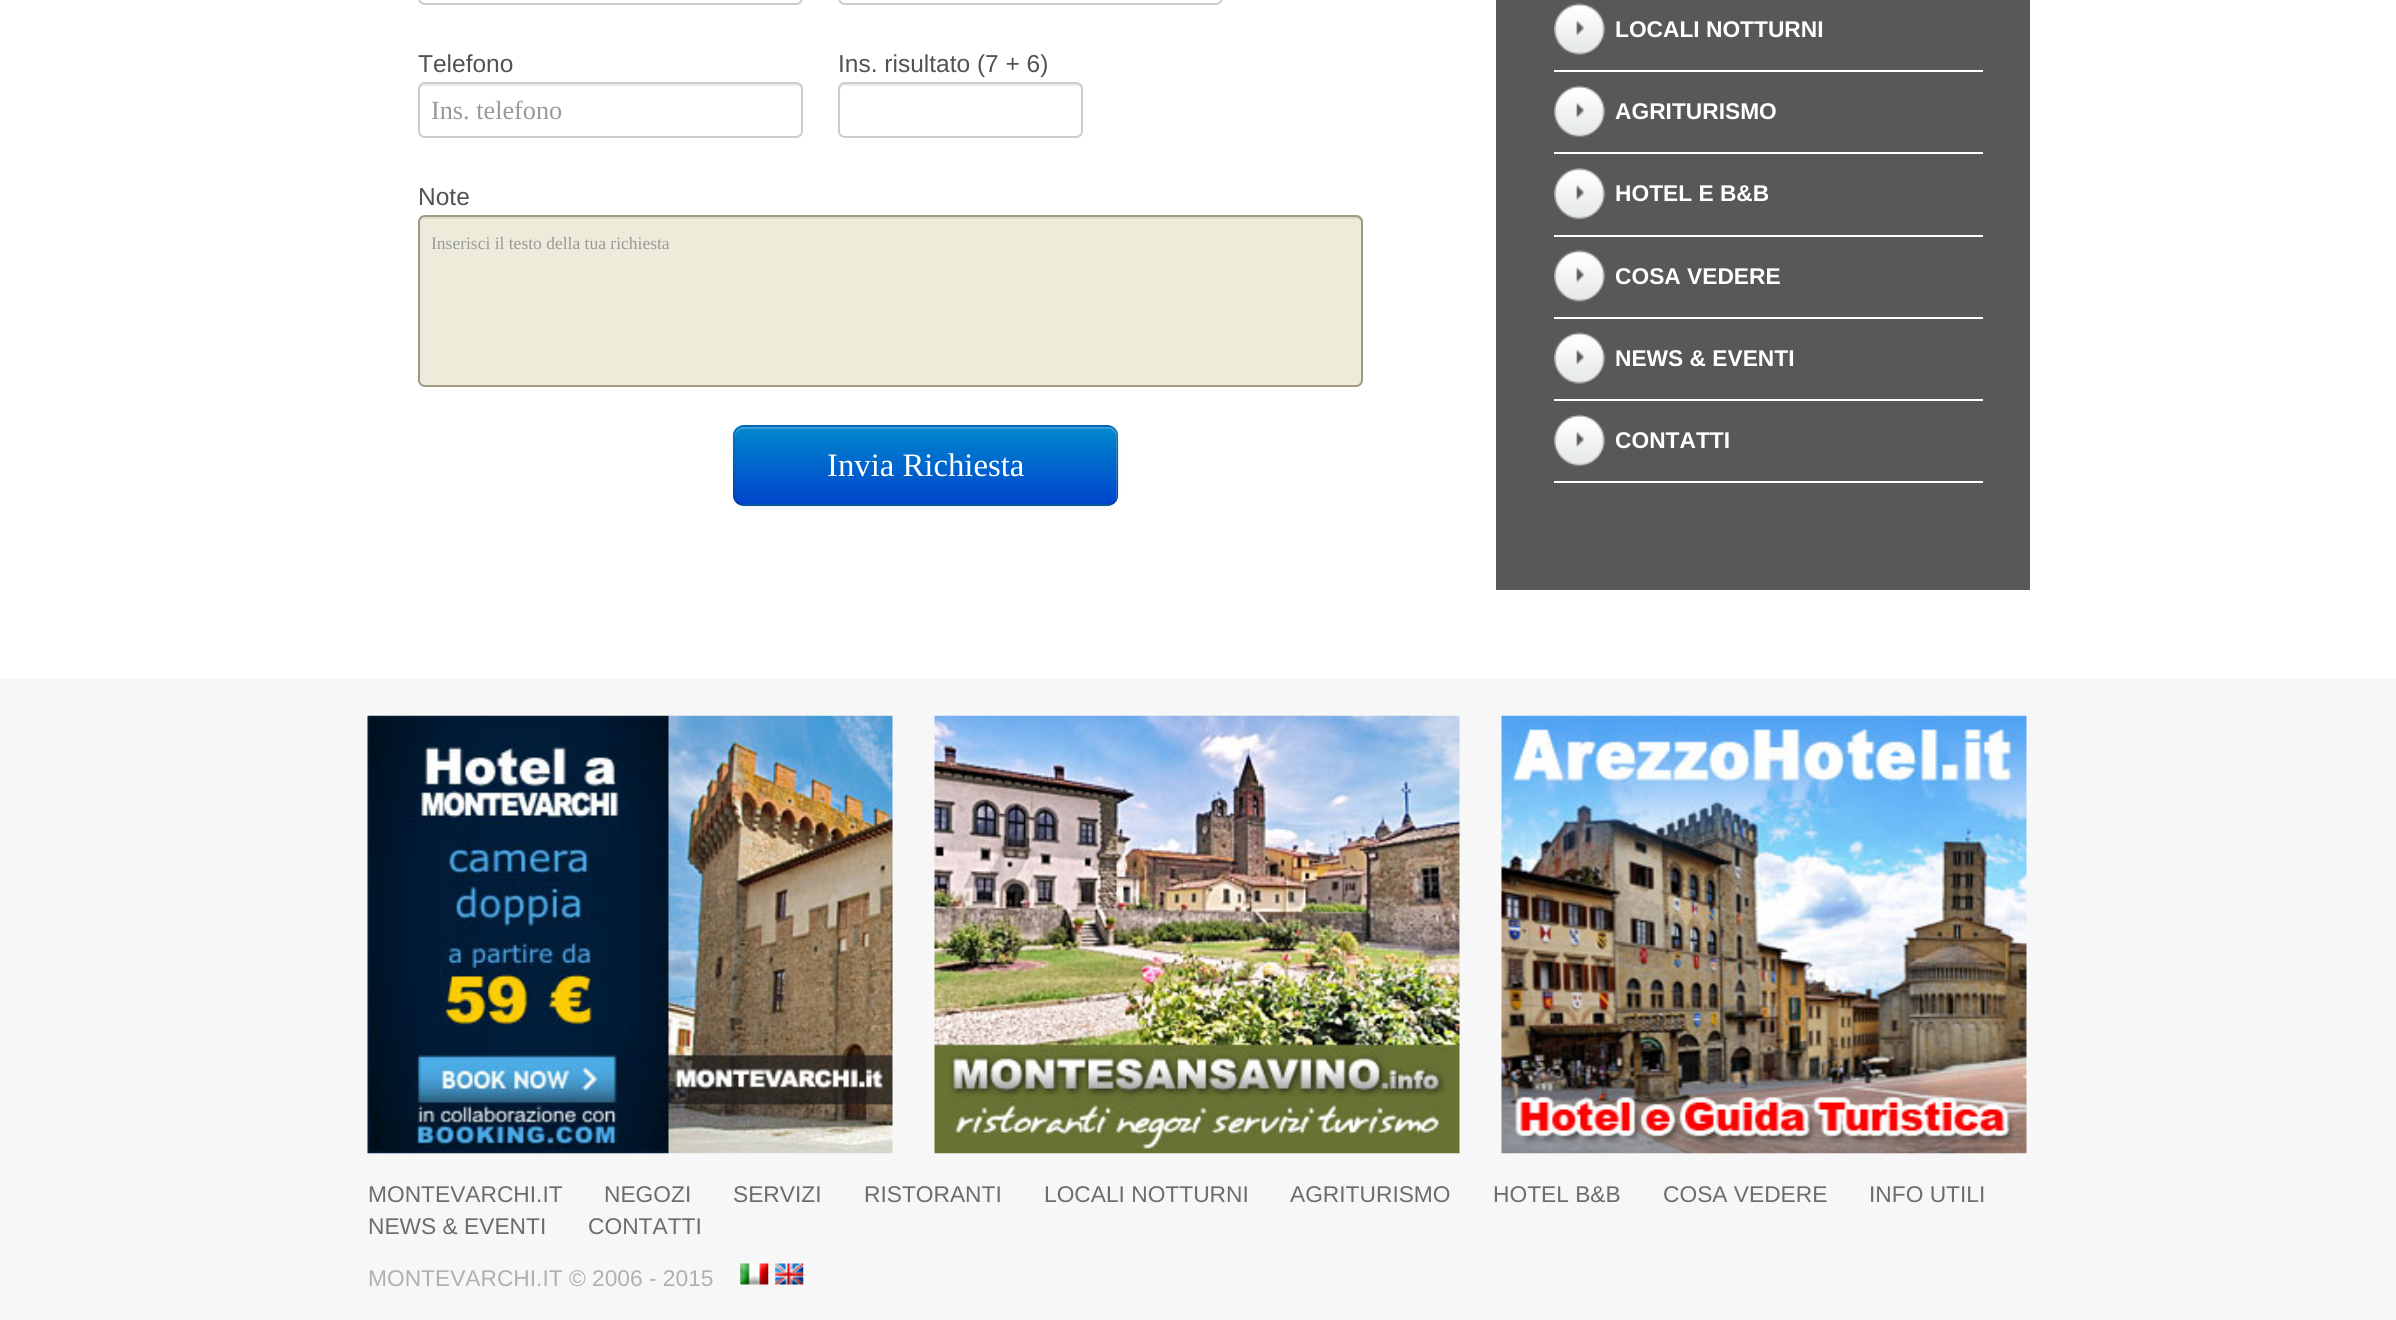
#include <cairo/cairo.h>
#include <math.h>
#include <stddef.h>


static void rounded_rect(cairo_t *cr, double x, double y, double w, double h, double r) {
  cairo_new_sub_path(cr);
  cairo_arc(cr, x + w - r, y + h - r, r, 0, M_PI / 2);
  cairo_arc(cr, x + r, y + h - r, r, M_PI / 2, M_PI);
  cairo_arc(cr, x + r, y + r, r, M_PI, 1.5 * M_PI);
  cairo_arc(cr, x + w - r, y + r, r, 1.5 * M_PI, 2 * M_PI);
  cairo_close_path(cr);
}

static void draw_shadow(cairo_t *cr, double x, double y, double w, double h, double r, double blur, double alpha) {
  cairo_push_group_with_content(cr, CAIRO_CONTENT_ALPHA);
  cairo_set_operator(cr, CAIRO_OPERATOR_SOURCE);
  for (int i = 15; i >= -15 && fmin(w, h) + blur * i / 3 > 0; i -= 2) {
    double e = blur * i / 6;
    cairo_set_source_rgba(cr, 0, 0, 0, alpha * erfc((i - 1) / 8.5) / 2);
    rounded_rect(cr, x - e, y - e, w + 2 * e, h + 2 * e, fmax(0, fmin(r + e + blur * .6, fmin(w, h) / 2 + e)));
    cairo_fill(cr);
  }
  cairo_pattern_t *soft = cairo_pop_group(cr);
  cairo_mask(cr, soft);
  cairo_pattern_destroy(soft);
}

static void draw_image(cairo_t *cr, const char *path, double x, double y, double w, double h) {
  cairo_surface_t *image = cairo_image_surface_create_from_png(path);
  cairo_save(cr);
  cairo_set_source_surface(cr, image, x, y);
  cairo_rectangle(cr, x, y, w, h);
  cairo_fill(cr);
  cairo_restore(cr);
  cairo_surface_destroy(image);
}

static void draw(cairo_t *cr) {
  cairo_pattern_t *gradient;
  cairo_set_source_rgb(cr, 1, 1, 1);
  cairo_paint(cr);
  rounded_rect(cr, 419, -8, 383, 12, 6);
  cairo_set_source_rgb(cr, 204 / 255.0, 204 / 255.0, 204 / 255.0);
  cairo_stroke(cr);
  rounded_rect(cr, 839, -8, 383, 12, 6);
  cairo_stroke(cr);
  cairo_set_source_rgb(cr, 236 / 255.0, 236 / 255.0, 236 / 255.0);
  cairo_new_path(cr);
  cairo_move_to(cr, 425, 86);
  cairo_line_to(cr, 796, 86);
  cairo_curve_to(cr, 799, 86, 802, 88, 802, 91);
  cairo_line_to(cr, 802, 89);
  cairo_curve_to(cr, 802, 86, 800, 84, 797, 84);
  cairo_line_to(cr, 425, 84);
  cairo_curve_to(cr, 422, 84, 420, 86, 420, 89);
  cairo_line_to(cr, 420, 91);
  cairo_curve_to(cr, 420, 88, 422, 86, 425, 86);
  cairo_close_path(cr);
  cairo_fill(cr);
  rounded_rect(cr, 419, 83, 383, 54, 6);
  cairo_set_source_rgb(cr, 204 / 255.0, 204 / 255.0, 204 / 255.0);
  cairo_stroke(cr);
  cairo_set_source_rgb(cr, 236 / 255.0, 236 / 255.0, 236 / 255.0);
  cairo_new_path(cr);
  cairo_move_to(cr, 845, 86);
  cairo_line_to(cr, 1076, 86);
  cairo_curve_to(cr, 1079, 86, 1082, 88, 1082, 91);
  cairo_curve_to(cr, 1082, 88, 1082, 85, 1078, 84);
  cairo_line_to(cr, 844, 84);
  cairo_curve_to(cr, 840, 85, 840, 88, 840, 91);
  cairo_curve_to(cr, 840, 88, 842, 86, 845, 86);
  cairo_close_path(cr);
  cairo_fill(cr);
  rounded_rect(cr, 839, 83, 243, 54, 6);
  cairo_set_source_rgb(cr, 204 / 255.0, 204 / 255.0, 204 / 255.0);
  cairo_stroke(cr);
  cairo_set_source_rgb(cr, 237 / 255.0, 236 / 255.0, 219 / 255.0);
  rounded_rect(cr, 418, 215, 945, 172, 7);
  cairo_fill(cr);
  cairo_set_source_rgb(cr, 219 / 255.0, 218 / 255.0, 203 / 255.0);
  cairo_new_path(cr);
  cairo_move_to(cr, 425, 219);
  cairo_line_to(cr, 1356, 219);
  cairo_curve_to(cr, 1359, 219, 1362, 221, 1362, 224);
  cairo_curve_to(cr, 1362, 221, 1361, 217, 1357, 217);
  cairo_line_to(cr, 425, 217);
  cairo_curve_to(cr, 421, 217, 420, 221, 420, 224);
  cairo_curve_to(cr, 420, 221, 422, 219, 425, 219);
  cairo_close_path(cr);
  cairo_fill(cr);
  rounded_rect(cr, 419, 216, 943, 170, 6);
  cairo_set_source_rgb(cr, 158 / 255.0, 155 / 255.0, 129 / 255.0);
  cairo_stroke(cr);
  cairo_set_source_rgb(cr, 0, 0, 0);
  draw_shadow(cr, 733, 427, 385, 81, 11, 2, 0.05);
  cairo_set_source_rgb(cr, 0, 109 / 255.0, 204 / 255.0);
  rounded_rect(cr, 733, 425, 385, 81, 11);
  cairo_fill(cr);
  cairo_save(cr);
  rounded_rect(cr, 733, 425, 385, 81, 11);
  cairo_clip(cr);
  gradient = cairo_pattern_create_linear(926, 427, 926, 504);
  cairo_pattern_add_color_stop_rgba(gradient, 0, 0, 136 / 255.0, 204 / 255.0, 1);
  cairo_pattern_add_color_stop_rgba(gradient, 1, 0, 68 / 255.0, 204 / 255.0, 1);
  cairo_set_source(cr, gradient);
  cairo_pattern_destroy(gradient);
  cairo_rectangle(cr, 733, 427, 385, 77);
  cairo_fill(cr);
  cairo_restore(cr);
  cairo_set_source_rgba(cr, 1, 1, 1, 0.2);
  cairo_new_path(cr);
  cairo_move_to(cr, 744, 429);
  cairo_line_to(cr, 1108, 429);
  cairo_curve_to(cr, 1113, 429, 1116, 433, 1116, 438);
  cairo_line_to(cr, 1116, 500);
  cairo_curve_to(cr, 1117, 498, 1117, 497, 1117, 495);
  cairo_line_to(cr, 1117, 436);
  cairo_curve_to(cr, 1117, 431, 1113, 427, 1108, 427);
  cairo_line_to(cr, 744, 427);
  cairo_curve_to(cr, 739, 427, 735, 431, 735, 436);
  cairo_line_to(cr, 735, 438);
  cairo_curve_to(cr, 735, 433, 739, 429, 744, 429);
  cairo_close_path(cr);
  cairo_fill(cr);
  cairo_new_path(cr);
  cairo_move_to(cr, 1114.5, 502);
  cairo_curve_to(cr, 1113, 504, 1110.5, 505, 1108, 505);
  cairo_line_to(cr, 744, 505);
  cairo_curve_to(cr, 741, 505, 738.5, 504, 737, 502);
  cairo_set_source_rgba(cr, 0, 0, 0, 0.25);
  cairo_set_line_width(cr, 1.8);
  cairo_stroke(cr);
  cairo_new_path(cr);
  cairo_move_to(cr, 737, 502);
  cairo_curve_to(cr, 735, 500.5, 734, 498, 734, 495);
  cairo_line_to(cr, 734, 436);
  cairo_curve_to(cr, 734, 433, 735, 430.5, 737, 429);
  cairo_curve_to(cr, 738.5, 427, 741, 426, 744, 426);
  cairo_line_to(cr, 1108, 426);
  cairo_curve_to(cr, 1110.5, 426, 1113, 427, 1114.5, 429);
  cairo_curve_to(cr, 1116.5, 430.5, 1117.5, 433, 1117.5, 436);
  cairo_line_to(cr, 1117.5, 495);
  cairo_curve_to(cr, 1117.5, 498, 1116.5, 500.5, 1114.5, 502);
  cairo_set_source_rgba(cr, 0, 0, 0, 0.1);
  cairo_stroke(cr);
  cairo_set_source_rgb(cr, 88 / 255.0, 88 / 255.0, 88 / 255.0);
  cairo_rectangle(cr, 1496, 0, 534, 590);
  cairo_fill(cr);
  cairo_set_source_rgb(cr, 1, 1, 1);
  cairo_rectangle(cr, 1554, 70, 429, 2);
  cairo_fill(cr);
  draw_image(cr, "images/1.png", 1554, 3, 52, 52);
  cairo_rectangle(cr, 1554, 152, 429, 2);
  cairo_fill(cr);
  draw_image(cr, "images/2.png", 1554, 85, 52, 52);
  cairo_rectangle(cr, 1554, 235, 429, 2);
  cairo_fill(cr);
  draw_image(cr, "images/3.png", 1554, 168, 52, 52);
  cairo_rectangle(cr, 1554, 317, 429, 2);
  cairo_fill(cr);
  draw_image(cr, "images/4.png", 1554, 250, 52, 52);
  cairo_rectangle(cr, 1554, 399, 429, 2);
  cairo_fill(cr);
  draw_image(cr, "images/1.png", 1554, 332, 52, 52);
  cairo_rectangle(cr, 1554, 481, 429, 2);
  cairo_fill(cr);
  draw_image(cr, "images/2.png", 1554, 414, 52, 52);
  cairo_set_source_rgb(cr, 247 / 255.0, 247 / 255.0, 247 / 255.0);
  cairo_rectangle(cr, 0, 679, 2396, 641);
  cairo_fill(cr);
  draw_image(cr, "images/5.png", 367, 715, 526, 439);
  draw_image(cr, "images/6.png", 934, 715, 526, 439);
  draw_image(cr, "images/7.png", 1501, 715, 526, 439);
  draw_image(cr, "images/8.png", 740, 1263, 29, 22);
  draw_image(cr, "images/9.png", 775, 1263, 29, 22);
  cairo_select_font_face(cr, "Liberation Sans", CAIRO_FONT_SLANT_NORMAL, CAIRO_FONT_WEIGHT_NORMAL);
  cairo_set_font_size(cr, 24.5);
  cairo_set_source_rgb(cr, 82 / 255.0, 82 / 255.0, 82 / 255.0);
  cairo_move_to(cr, 418, 72);
  cairo_show_text(cr, "Telefono");
  cairo_select_font_face(cr, "Liberation Serif", CAIRO_FONT_SLANT_NORMAL, CAIRO_FONT_WEIGHT_NORMAL);
  cairo_set_font_size(cr, 26.25);
  cairo_set_source_rgb(cr, 153 / 255.0, 153 / 255.0, 153 / 255.0);
  cairo_move_to(cr, 431, 119);
  cairo_show_text(cr, "Ins. telefono");
  cairo_select_font_face(cr, "Liberation Sans", CAIRO_FONT_SLANT_NORMAL, CAIRO_FONT_WEIGHT_NORMAL);
  cairo_set_font_size(cr, 24.5);
  cairo_set_source_rgb(cr, 82 / 255.0, 82 / 255.0, 82 / 255.0);
  cairo_move_to(cr, 838, 72);
  cairo_show_text(cr, "Ins. risultato (7 + 6)");
  cairo_move_to(cr, 418, 205);
  cairo_show_text(cr, "Note");
  cairo_select_font_face(cr, "Liberation Serif", CAIRO_FONT_SLANT_NORMAL, CAIRO_FONT_WEIGHT_NORMAL);
  cairo_set_font_size(cr, 17.5);
  cairo_set_source_rgb(cr, 153 / 255.0, 153 / 255.0, 153 / 255.0);
  cairo_move_to(cr, 431, 249);
  cairo_show_text(cr, "Inserisci il testo della tua richiesta");
  cairo_set_font_size(cr, 32.75);
  cairo_set_source_rgb(cr, 1, 1, 1);
  cairo_move_to(cr, 827, 476);
  cairo_show_text(cr, "Invia Richiesta");
  cairo_select_font_face(cr, "Liberation Sans", CAIRO_FONT_SLANT_NORMAL, CAIRO_FONT_WEIGHT_BOLD);
  cairo_set_font_size(cr, 22.75);
  cairo_move_to(cr, 1615, 37);
  cairo_show_text(cr, "LOCALI NOTTURNI");
  cairo_move_to(cr, 1615, 119);
  cairo_show_text(cr, "AGRITURISMO");
  cairo_move_to(cr, 1615, 201);
  cairo_show_text(cr, "HOTEL E B&B");
  cairo_move_to(cr, 1615, 284);
  cairo_show_text(cr, "COSA VEDERE");
  cairo_move_to(cr, 1615, 366);
  cairo_show_text(cr, "NEWS & EVENTI");
  cairo_move_to(cr, 1615, 448);
  cairo_show_text(cr, "CONTATTI");
  cairo_select_font_face(cr, "Liberation Sans", CAIRO_FONT_SLANT_NORMAL, CAIRO_FONT_WEIGHT_NORMAL);
  cairo_set_source_rgb(cr, 108 / 255.0, 108 / 255.0, 108 / 255.0);
  cairo_move_to(cr, 368, 1202);
  cairo_show_text(cr, "MONTEVARCHI.IT");
  cairo_move_to(cr, 604, 1202);
  cairo_show_text(cr, "NEGOZI");
  cairo_move_to(cr, 733, 1202);
  cairo_show_text(cr, "SERVIZI");
  cairo_move_to(cr, 864, 1202);
  cairo_show_text(cr, "RISTORANTI");
  cairo_move_to(cr, 1044, 1202);
  cairo_show_text(cr, "LOCALI NOTTURNI");
  cairo_move_to(cr, 1290, 1202);
  cairo_show_text(cr, "AGRITURISMO");
  cairo_move_to(cr, 1493, 1202);
  cairo_show_text(cr, "HOTEL B&B");
  cairo_move_to(cr, 1663, 1202);
  cairo_show_text(cr, "COSA VEDERE");
  cairo_move_to(cr, 1869, 1202);
  cairo_show_text(cr, "INFO UTILI");
  cairo_move_to(cr, 368, 1234);
  cairo_show_text(cr, "NEWS & EVENTI");
  cairo_move_to(cr, 588, 1234);
  cairo_show_text(cr, "CONTATTI");
  cairo_set_source_rgb(cr, 176 / 255.0, 176 / 255.0, 174 / 255.0);
  cairo_move_to(cr, 368, 1286);
  cairo_show_text(cr, "MONTEVARCHI.IT © 2006 - 2015");
}

int main(void) {
  cairo_surface_t *surface = cairo_image_surface_create(CAIRO_FORMAT_RGB24, 2396, 1320);
  cairo_t *cr = cairo_create(surface);
  cairo_font_options_t *options = cairo_font_options_create();
  cairo_font_options_set_hint_metrics(options, CAIRO_HINT_METRICS_OFF);
  cairo_font_options_set_hint_style(options, CAIRO_HINT_STYLE_NONE);
  cairo_set_font_options(cr, options);
  cairo_set_miter_limit(cr, 4);
  draw(cr);
  cairo_surface_write_to_png(surface, "out.png");
  cairo_font_options_destroy(options);
  cairo_destroy(cr);
  cairo_surface_destroy(surface);
  return 0;
}
